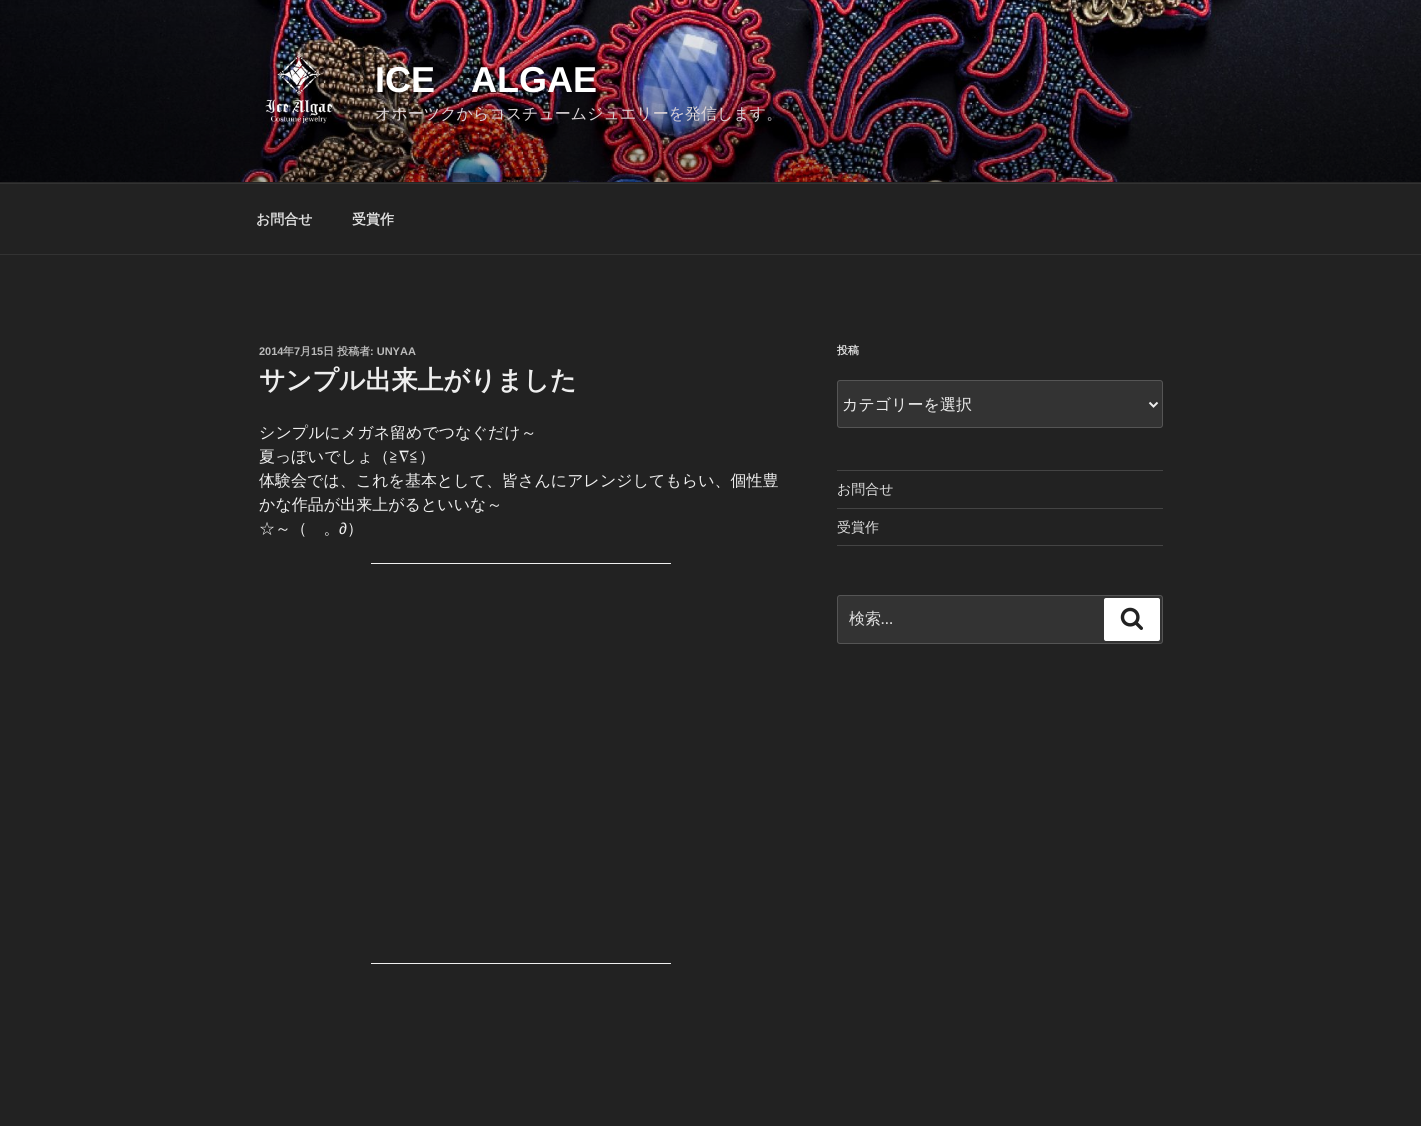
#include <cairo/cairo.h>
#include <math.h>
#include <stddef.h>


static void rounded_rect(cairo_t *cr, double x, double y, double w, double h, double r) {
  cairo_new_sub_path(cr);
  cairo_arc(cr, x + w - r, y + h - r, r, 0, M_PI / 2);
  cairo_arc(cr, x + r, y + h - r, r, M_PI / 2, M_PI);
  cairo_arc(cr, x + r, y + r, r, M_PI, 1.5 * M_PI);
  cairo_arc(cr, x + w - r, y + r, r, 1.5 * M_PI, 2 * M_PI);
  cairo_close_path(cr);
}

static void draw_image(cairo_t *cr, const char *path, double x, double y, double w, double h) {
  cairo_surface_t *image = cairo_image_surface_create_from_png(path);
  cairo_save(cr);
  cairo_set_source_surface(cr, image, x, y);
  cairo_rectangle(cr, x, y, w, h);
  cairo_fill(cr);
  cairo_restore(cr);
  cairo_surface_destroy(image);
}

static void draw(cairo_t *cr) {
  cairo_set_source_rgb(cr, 34 / 255.0, 34 / 255.0, 34 / 255.0);
  cairo_paint(cr);
  cairo_set_source_rgb(cr, 38 / 255.0, 38 / 255.0, 38 / 255.0);
  cairo_rectangle(cr, 0, 182, 1421, 1);
  cairo_fill(cr);
  draw_image(cr, "images/1.png", 0, 0, 1421, 182);
  draw_image(cr, "images/2.png", 265, 53, 68, 71);
  cairo_set_source_rgb(cr, 51 / 255.0, 51 / 255.0, 51 / 255.0);
  cairo_rectangle(cr, 0, 183, 1421, 1);
  cairo_fill(cr);
  cairo_rectangle(cr, 0, 254, 1421, 1);
  cairo_fill(cr);
  cairo_set_source_rgb(cr, 240 / 255.0, 240 / 255.0, 240 / 255.0);
  cairo_rectangle(cr, 371, 563, 300, 1);
  cairo_fill(cr);
  cairo_rectangle(cr, 371, 963, 300, 1);
  cairo_fill(cr);
  cairo_set_source_rgb(cr, 51 / 255.0, 51 / 255.0, 51 / 255.0);
  rounded_rect(cr, 837.5, 380.5, 325, 47, 2.5);
  cairo_fill_preserve(cr);
  cairo_set_source_rgb(cr, 85 / 255.0, 85 / 255.0, 85 / 255.0);
  cairo_set_line_width(cr, 1);
  cairo_stroke(cr);
  cairo_new_path(cr);
  cairo_move_to(cr, 1149.5, 402.5);
  cairo_line_to(cr, 1153.5, 406.5);
  cairo_line_to(cr, 1157.5, 402.5);
  cairo_set_source_rgb(cr, 238 / 255.0, 238 / 255.0, 238 / 255.0);
  cairo_set_line_width(cr, 2);
  cairo_stroke(cr);
  cairo_set_source_rgb(cr, 68 / 255.0, 68 / 255.0, 68 / 255.0);
  cairo_rectangle(cr, 837, 470, 326, 1);
  cairo_fill(cr);
  cairo_rectangle(cr, 837, 508, 326, 1);
  cairo_fill(cr);
  cairo_rectangle(cr, 837, 545, 326, 1);
  cairo_fill(cr);
  cairo_set_source_rgb(cr, 51 / 255.0, 51 / 255.0, 51 / 255.0);
  rounded_rect(cr, 837.5, 595.5, 325, 48, 2.5);
  cairo_fill_preserve(cr);
  cairo_set_source_rgb(cr, 85 / 255.0, 85 / 255.0, 85 / 255.0);
  cairo_set_line_width(cr, 1);
  cairo_stroke(cr);
  cairo_set_source_rgb(cr, 1, 1, 1);
  rounded_rect(cr, 1104, 598, 56, 43, 2);
  cairo_fill(cr);
  draw_image(cr, "images/3.png", 1120, 607, 23, 23);
  cairo_select_font_face(cr, "Liberation Sans", CAIRO_FONT_SLANT_NORMAL, CAIRO_FONT_WEIGHT_BOLD);
  cairo_set_font_size(cr, 36);
  cairo_move_to(cr, 375, 92);
  cairo_show_text(cr, "ICE");
  cairo_move_to(cr, 471, 92);
  cairo_show_text(cr, "ALGAE");
  cairo_select_font_face(cr, "WenQuanYi Zen Hei Medium", CAIRO_FONT_SLANT_NORMAL, CAIRO_FONT_WEIGHT_NORMAL);
  cairo_set_font_size(cr, 16);
  cairo_set_source_rgb(cr, 220 / 255.0, 213 / 255.0, 216 / 255.0);
  cairo_move_to(cr, 375, 119);
  cairo_show_text(cr, "オホーツクからコスチュームジュエリーを発信します。");
  cairo_select_font_face(cr, "WenQuanYi Zen Hei", CAIRO_FONT_SLANT_NORMAL, CAIRO_FONT_WEIGHT_BOLD);
  cairo_set_font_size(cr, 14);
  cairo_set_source_rgb(cr, 221 / 255.0, 221 / 255.0, 221 / 255.0);
  cairo_move_to(cr, 256, 224);
  cairo_show_text(cr, "お問合せ");
  cairo_move_to(cr, 352, 224);
  cairo_show_text(cr, "受賞作");
  cairo_select_font_face(cr, "Liberation Sans", CAIRO_FONT_SLANT_NORMAL, CAIRO_FONT_WEIGHT_BOLD);
  cairo_set_font_size(cr, 11);
  cairo_set_source_rgb(cr, 187 / 255.0, 187 / 255.0, 187 / 255.0);
  cairo_move_to(cr, 259, 355);
  cairo_show_text(cr, "2014");
  cairo_select_font_face(cr, "WenQuanYi Zen Hei", CAIRO_FONT_SLANT_NORMAL, CAIRO_FONT_WEIGHT_BOLD);
  cairo_move_to(cr, 283, 355);
  cairo_show_text(cr, "年");
  cairo_select_font_face(cr, "Liberation Sans", CAIRO_FONT_SLANT_NORMAL, CAIRO_FONT_WEIGHT_BOLD);
  cairo_move_to(cr, 294, 355);
  cairo_show_text(cr, "7");
  cairo_select_font_face(cr, "WenQuanYi Zen Hei", CAIRO_FONT_SLANT_NORMAL, CAIRO_FONT_WEIGHT_BOLD);
  cairo_move_to(cr, 300, 355);
  cairo_show_text(cr, "月");
  cairo_select_font_face(cr, "Liberation Sans", CAIRO_FONT_SLANT_NORMAL, CAIRO_FONT_WEIGHT_BOLD);
  cairo_move_to(cr, 311, 355);
  cairo_show_text(cr, "15");
  cairo_select_font_face(cr, "WenQuanYi Zen Hei", CAIRO_FONT_SLANT_NORMAL, CAIRO_FONT_WEIGHT_BOLD);
  cairo_move_to(cr, 323, 355);
  cairo_show_text(cr, "日 投稿者");
  cairo_select_font_face(cr, "Liberation Sans", CAIRO_FONT_SLANT_NORMAL, CAIRO_FONT_WEIGHT_BOLD);
  cairo_move_to(cr, 370, 355);
  cairo_show_text(cr, ": UNYAA");
  cairo_select_font_face(cr, "WenQuanYi Zen Hei", CAIRO_FONT_SLANT_NORMAL, CAIRO_FONT_WEIGHT_BOLD);
  cairo_set_font_size(cr, 26);
  cairo_set_source_rgb(cr, 238 / 255.0, 238 / 255.0, 238 / 255.0);
  cairo_move_to(cr, 259, 389);
  cairo_show_text(cr, "サンプル出来上がりました");
  cairo_select_font_face(cr, "WenQuanYi Zen Hei Medium", CAIRO_FONT_SLANT_NORMAL, CAIRO_FONT_WEIGHT_NORMAL);
  cairo_set_font_size(cr, 16);
  cairo_move_to(cr, 259, 438);
  cairo_show_text(cr, "シンプルにメガネ留めでつなぐだけ～");
  cairo_move_to(cr, 259, 462);
  cairo_show_text(cr, "夏っぽいでしょ（≧∇≦）");
  cairo_move_to(cr, 259, 486);
  cairo_show_text(cr, "体験会では、これを基本として、皆さんにアレンジしてもらい、個性豊");
  cairo_move_to(cr, 259, 510);
  cairo_show_text(cr, "かな作品が出来上がるといいな～");
  cairo_move_to(cr, 259, 534);
  cairo_show_text(cr, "☆～（ゝ。");
  cairo_select_font_face(cr, "Liberation Sans", CAIRO_FONT_SLANT_NORMAL, CAIRO_FONT_WEIGHT_NORMAL);
  cairo_move_to(cr, 339, 534);
  cairo_show_text(cr, "∂");
  cairo_select_font_face(cr, "WenQuanYi Zen Hei Medium", CAIRO_FONT_SLANT_NORMAL, CAIRO_FONT_WEIGHT_NORMAL);
  cairo_move_to(cr, 347, 534);
  cairo_show_text(cr, "）");
  cairo_select_font_face(cr, "WenQuanYi Zen Hei", CAIRO_FONT_SLANT_NORMAL, CAIRO_FONT_WEIGHT_BOLD);
  cairo_set_font_size(cr, 11);
  cairo_set_source_rgb(cr, 221 / 255.0, 221 / 255.0, 221 / 255.0);
  cairo_move_to(cr, 837, 354);
  cairo_show_text(cr, "投稿");
  cairo_select_font_face(cr, "WenQuanYi Zen Hei Medium", CAIRO_FONT_SLANT_NORMAL, CAIRO_FONT_WEIGHT_NORMAL);
  cairo_set_font_size(cr, 16);
  cairo_set_source_rgb(cr, 238 / 255.0, 238 / 255.0, 238 / 255.0);
  cairo_move_to(cr, 842, 410);
  cairo_show_text(cr, "カテゴリーを選択");
  cairo_set_font_size(cr, 14);
  cairo_set_source_rgb(cr, 221 / 255.0, 221 / 255.0, 221 / 255.0);
  cairo_move_to(cr, 837, 494);
  cairo_show_text(cr, "お問合せ");
  cairo_move_to(cr, 837, 532);
  cairo_show_text(cr, "受賞作");
  cairo_set_font_size(cr, 16);
  cairo_move_to(cr, 849, 624);
  cairo_show_text(cr, "検索");
  cairo_select_font_face(cr, "Libre Franklin", CAIRO_FONT_SLANT_NORMAL, CAIRO_FONT_WEIGHT_NORMAL);
  cairo_move_to(cr, 881, 624);
  cairo_show_text(cr, "…");
}

int main(void) {
  cairo_surface_t *surface = cairo_image_surface_create(CAIRO_FORMAT_RGB24, 1421, 1126);
  cairo_t *cr = cairo_create(surface);
  cairo_font_options_t *options = cairo_font_options_create();
  cairo_font_options_set_hint_metrics(options, CAIRO_HINT_METRICS_OFF);
  cairo_font_options_set_hint_style(options, CAIRO_HINT_STYLE_NONE);
  cairo_set_font_options(cr, options);
  cairo_set_miter_limit(cr, 4);
  draw(cr);
  cairo_surface_write_to_png(surface, "out.png");
  cairo_font_options_destroy(options);
  cairo_destroy(cr);
  cairo_surface_destroy(surface);
  return 0;
}
